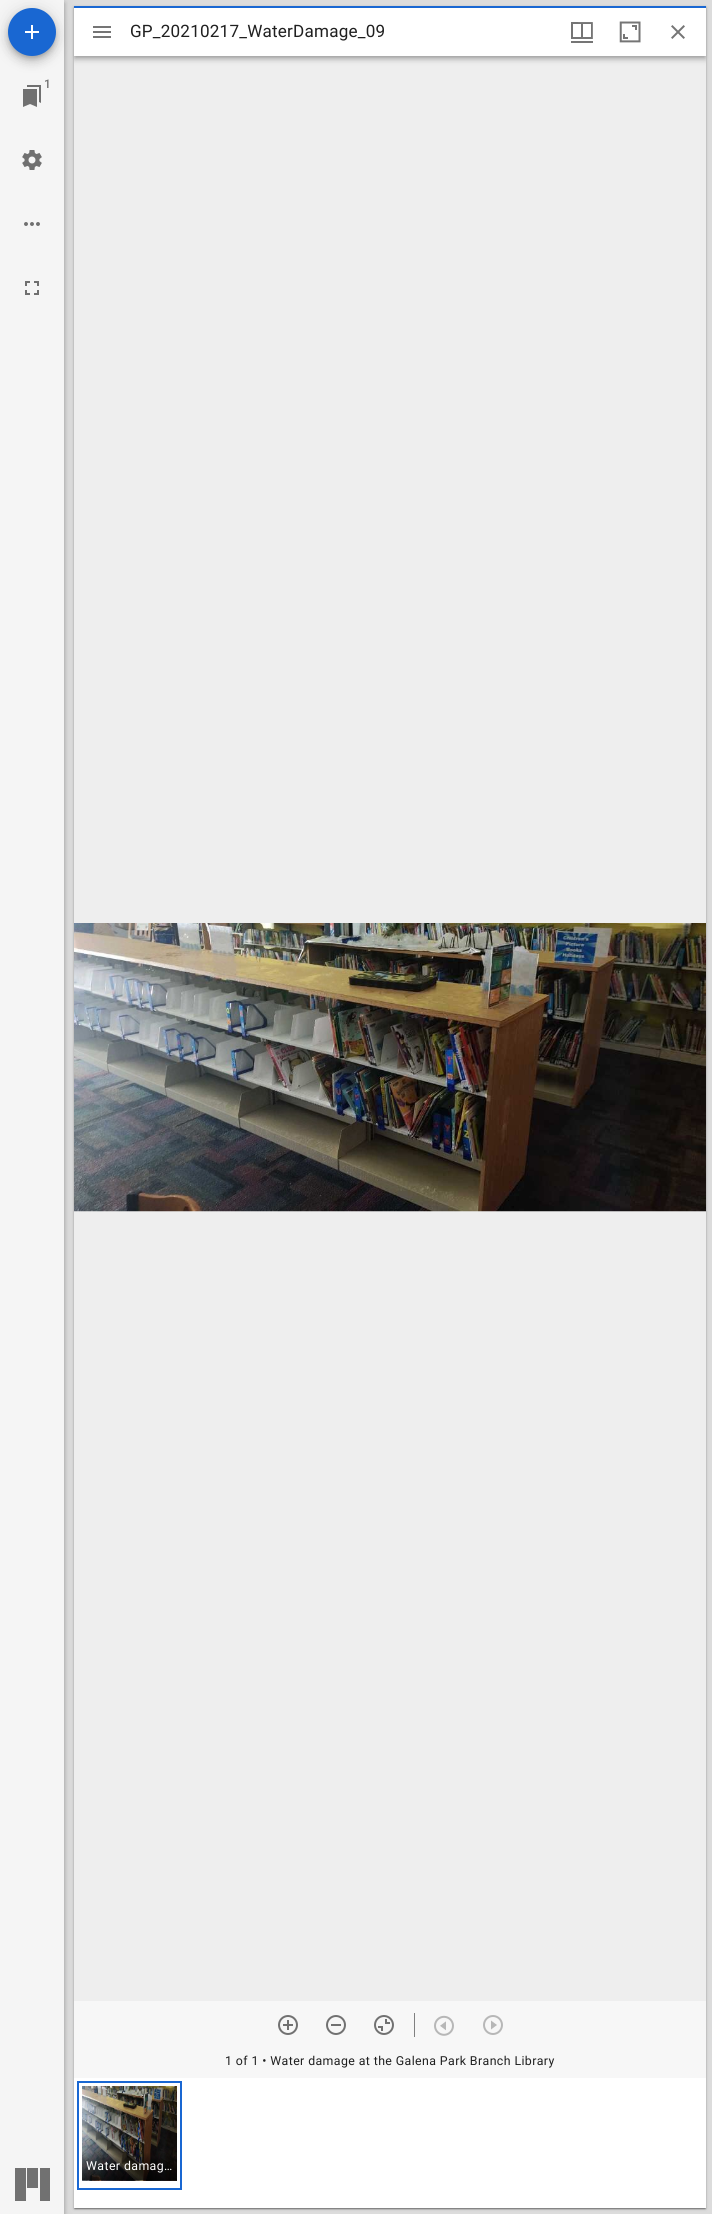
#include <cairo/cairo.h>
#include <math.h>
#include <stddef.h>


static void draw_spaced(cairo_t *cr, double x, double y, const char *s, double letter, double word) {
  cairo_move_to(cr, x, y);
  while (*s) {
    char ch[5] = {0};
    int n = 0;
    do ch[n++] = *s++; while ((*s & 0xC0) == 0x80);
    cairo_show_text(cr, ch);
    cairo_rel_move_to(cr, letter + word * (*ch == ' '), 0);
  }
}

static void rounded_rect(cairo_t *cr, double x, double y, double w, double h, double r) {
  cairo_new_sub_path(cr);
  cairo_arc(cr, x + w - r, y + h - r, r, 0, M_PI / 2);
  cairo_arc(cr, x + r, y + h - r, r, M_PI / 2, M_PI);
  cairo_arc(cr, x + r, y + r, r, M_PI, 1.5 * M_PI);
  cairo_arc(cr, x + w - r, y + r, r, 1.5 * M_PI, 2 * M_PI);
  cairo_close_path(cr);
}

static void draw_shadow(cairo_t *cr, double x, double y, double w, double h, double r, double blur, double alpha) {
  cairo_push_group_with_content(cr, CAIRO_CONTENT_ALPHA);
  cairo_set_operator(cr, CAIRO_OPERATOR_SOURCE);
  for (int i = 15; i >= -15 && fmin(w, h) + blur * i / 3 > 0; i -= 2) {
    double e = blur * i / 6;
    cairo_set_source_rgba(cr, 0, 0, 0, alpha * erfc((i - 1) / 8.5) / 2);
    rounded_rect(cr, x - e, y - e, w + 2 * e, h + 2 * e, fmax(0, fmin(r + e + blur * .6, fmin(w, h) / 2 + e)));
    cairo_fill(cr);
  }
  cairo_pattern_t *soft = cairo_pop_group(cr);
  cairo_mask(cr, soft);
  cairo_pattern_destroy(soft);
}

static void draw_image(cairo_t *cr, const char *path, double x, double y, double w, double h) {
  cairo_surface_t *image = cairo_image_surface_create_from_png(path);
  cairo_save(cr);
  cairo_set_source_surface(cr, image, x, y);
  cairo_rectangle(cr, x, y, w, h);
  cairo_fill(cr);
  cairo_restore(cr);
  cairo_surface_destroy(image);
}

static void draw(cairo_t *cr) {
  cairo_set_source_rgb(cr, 220 / 255.0, 220 / 255.0, 220 / 255.0);
  cairo_paint(cr);
  cairo_set_source_rgb(cr, 0, 0, 0);
  draw_shadow(cr, 75, 9, 630, 2200, 0, 0.5, 0.2);
  draw_shadow(cr, 74, 7, 632, 2202, 0, 0.5, 0.2);
  draw_shadow(cr, 74, 7, 632, 2202, 0, 1.5, 0.2);
  cairo_set_source_rgb(cr, 238 / 255.0, 238 / 255.0, 238 / 255.0);
  cairo_rectangle(cr, 74, 56, 632, 1945);
  cairo_fill(cr);
  cairo_save(cr);
  cairo_rectangle(cr, 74, 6, 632, 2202);
  cairo_clip(cr);
  cairo_set_source_rgb(cr, 0, 0, 0);
  draw_shadow(cr, 74, 7, 632, 50, 0, 5, 0.12);
  draw_shadow(cr, 74, 10, 632, 50, 0, 2.5, 0.14);
  cairo_restore(cr);
  cairo_set_source_rgb(cr, 0, 0, 0);
  draw_shadow(cr, 75, 9, 630, 48, 0, 2, 0.2);
  cairo_set_source_rgb(cr, 1, 1, 1);
  cairo_rectangle(cr, 74, 8, 632, 48);
  cairo_fill(cr);
  cairo_set_source_rgb(cr, 25 / 255.0, 103 / 255.0, 210 / 255.0);
  cairo_rectangle(cr, 74, 6, 632, 2);
  cairo_fill(cr);
  draw_image(cr, "images/10.png", 74, 923, 632, 289);
  cairo_set_source_rgb(cr, 247 / 255.0, 247 / 255.0, 247 / 255.0);
  cairo_rectangle(cr, 74, 2001, 632, 77);
  cairo_fill(cr);
  cairo_set_source_rgb(cr, 1, 1, 1);
  cairo_rectangle(cr, 74, 2078, 632, 130);
  cairo_fill(cr);
  cairo_rectangle(cr, 78, 2082, 103, 107);
  cairo_set_source_rgb(cr, 25 / 255.0, 103 / 255.0, 210 / 255.0);
  cairo_stroke(cr);
  cairo_set_source_rgb(cr, 0, 0, 0);
  draw_shadow(cr, 0, 1, 64, 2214, 0, 5, 0.12);
  draw_shadow(cr, 0, 4, 64, 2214, 0, 2.5, 0.14);
  draw_shadow(cr, 1, 3, 62, 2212, 0, 2, 0.2);
  cairo_set_source_rgb(cr, 245 / 255.0, 245 / 255.0, 245 / 255.0);
  cairo_rectangle(cr, 0, 0, 64, 2214);
  cairo_fill(cr);
  cairo_set_source_rgb(cr, 0, 0, 0);
  draw_shadow(cr, 8, 9, 48, 48, 24, 9, 0.12);
  draw_shadow(cr, 8, 14, 48, 48, 24, 5, 0.14);
  draw_shadow(cr, 9, 12, 46, 46, 23, 2.5, 0.2);
  cairo_set_source_rgb(cr, 25 / 255.0, 103 / 255.0, 210 / 255.0);
  cairo_arc(cr, 32, 32, 24, 0, 2 * M_PI);
  cairo_fill(cr);
  draw_image(cr, "images/1.png", 25, 25, 14, 14);
  draw_image(cr, "images/2.png", 23, 85, 18, 22);
  draw_image(cr, "images/3.png", 22, 150, 20, 20);
  draw_image(cr, "images/4.png", 24, 222, 16, 4);
  draw_image(cr, "images/5.png", 25, 281, 14, 14);
  cairo_set_source_rgb(cr, 113 / 255.0, 113 / 255.0, 113 / 255.0);
  cairo_rectangle(cr, 15, 2168, 11, 33);
  cairo_fill(cr);
  cairo_rectangle(cr, 40, 2168, 10, 33);
  cairo_fill(cr);
  cairo_rectangle(cr, 27, 2168, 11, 20);
  cairo_fill(cr);
  draw_image(cr, "images/6.png", 93, 26, 18, 12);
  draw_image(cr, "images/7.png", 571, 22, 22, 21);
  draw_image(cr, "images/8.png", 619, 21, 22, 22);
  draw_image(cr, "images/9.png", 671, 25, 14, 14);
  draw_image(cr, "images/11.png", 278, 2015, 20, 20);
  draw_image(cr, "images/12.png", 326, 2015, 20, 20);
  draw_image(cr, "images/13.png", 374, 2015, 20, 20);
  cairo_set_source_rgb(cr, 128 / 255.0, 128 / 255.0, 128 / 255.0);
  cairo_rectangle(cr, 414, 2013, 1, 24);
  cairo_fill(cr);
  draw_image(cr, "images/14.png", 434, 2015, 20, 21);
  draw_image(cr, "images/15.png", 483, 2015, 20, 20);
  draw_image(cr, "images/16.png", 82, 2086, 95, 95);
  cairo_select_font_face(cr, "Roboto Medium", CAIRO_FONT_SLANT_NORMAL, CAIRO_FONT_WEIGHT_NORMAL);
  cairo_set_font_size(cr, 12);
  cairo_set_source_rgb(cr, 113 / 255.0, 113 / 255.0, 113 / 255.0);
  cairo_move_to(cr, 44, 88);
  cairo_show_text(cr, "1");
  cairo_select_font_face(cr, "Roboto", CAIRO_FONT_SLANT_NORMAL, CAIRO_FONT_WEIGHT_NORMAL);
  cairo_set_font_size(cr, 17.1);
  cairo_set_source_rgb(cr, 32 / 255.0, 32 / 255.0, 32 / 255.0);
  draw_spaced(cr, 130, 37, "GP_20210217_WaterDamage_09", 0.2, 0);
  cairo_set_font_size(cr, 12.35);
  draw_spaced(cr, 225, 2065, "1 of 1 • Water damage at the Galena Park Branch Library", 0.4, 0);
  cairo_set_source_rgb(cr, 1, 1, 1);
  draw_spaced(cr, 86, 2170, "Water damag…", 0.4, 0);
}

int main(void) {
  cairo_surface_t *surface = cairo_image_surface_create(CAIRO_FORMAT_RGB24, 712, 2214);
  cairo_t *cr = cairo_create(surface);
  cairo_font_options_t *options = cairo_font_options_create();
  cairo_font_options_set_hint_metrics(options, CAIRO_HINT_METRICS_OFF);
  cairo_font_options_set_hint_style(options, CAIRO_HINT_STYLE_NONE);
  cairo_set_font_options(cr, options);
  cairo_set_miter_limit(cr, 4);
  draw(cr);
  cairo_surface_write_to_png(surface, "out.png");
  cairo_font_options_destroy(options);
  cairo_destroy(cr);
  cairo_surface_destroy(surface);
  return 0;
}
